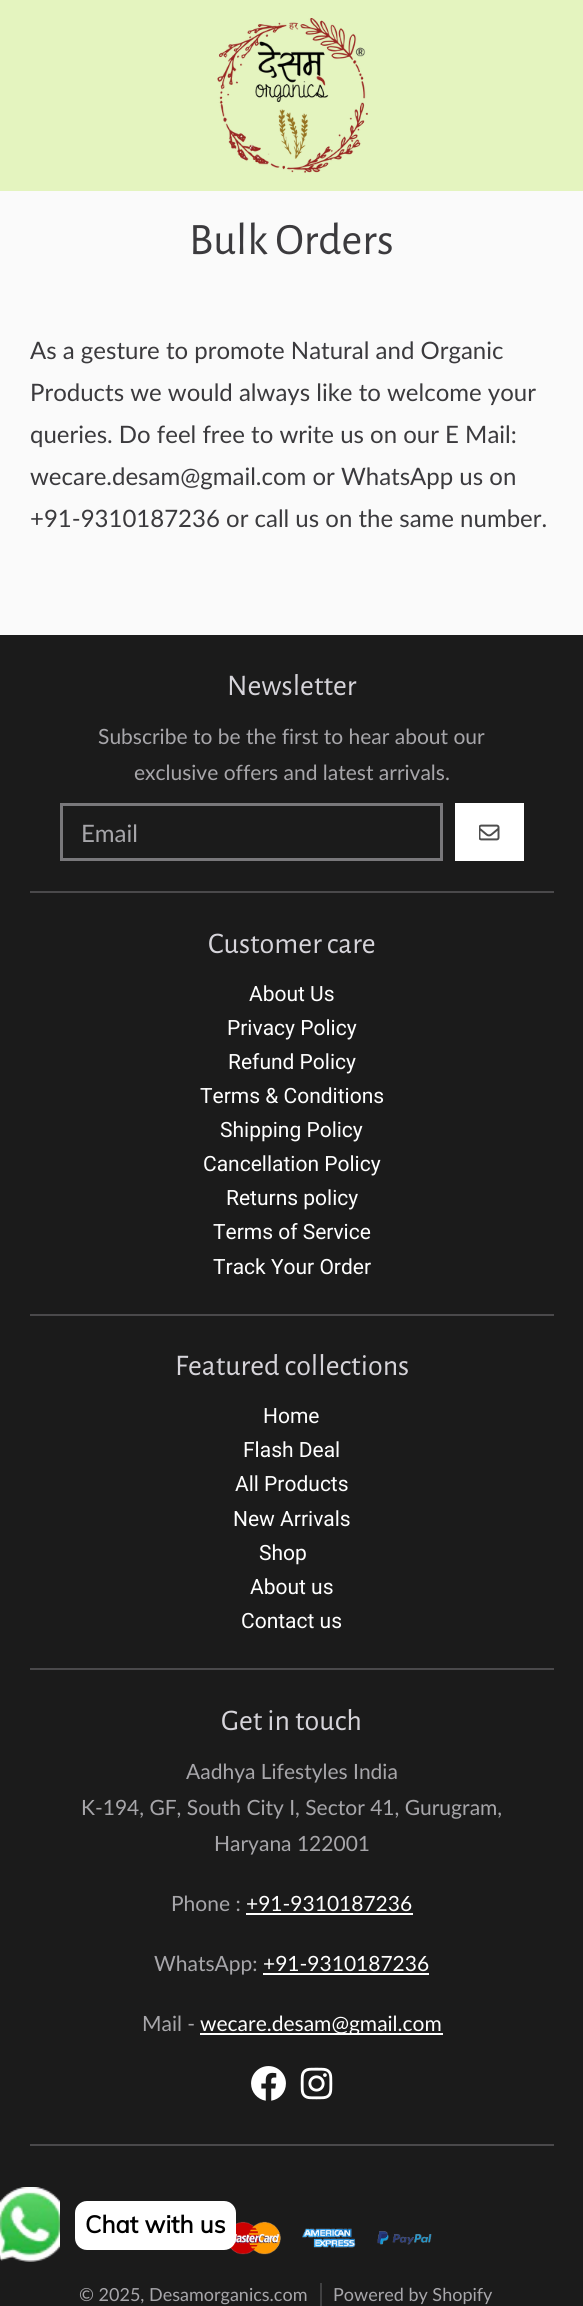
#include <cairo/cairo.h>
#include <math.h>
#include <stddef.h>


static void rounded_rect(cairo_t *cr, double x, double y, double w, double h, double r) {
  cairo_new_sub_path(cr);
  cairo_arc(cr, x + w - r, y + h - r, r, 0, M_PI / 2);
  cairo_arc(cr, x + r, y + h - r, r, M_PI / 2, M_PI);
  cairo_arc(cr, x + r, y + r, r, M_PI, 1.5 * M_PI);
  cairo_arc(cr, x + w - r, y + r, r, 1.5 * M_PI, 2 * M_PI);
  cairo_close_path(cr);
}

static void draw_image(cairo_t *cr, const char *path, double x, double y, double w, double h) {
  cairo_surface_t *image = cairo_image_surface_create_from_png(path);
  cairo_save(cr);
  cairo_set_source_surface(cr, image, x, y);
  cairo_rectangle(cr, x, y, w, h);
  cairo_fill(cr);
  cairo_restore(cr);
  cairo_surface_destroy(image);
}

static void draw(cairo_t *cr) {
  cairo_set_source_rgb(cr, 27 / 255.0, 27 / 255.0, 27 / 255.0);
  cairo_paint(cr);
  cairo_set_source_rgb(cr, 228 / 255.0, 244 / 255.0, 191 / 255.0);
  cairo_rectangle(cr, 0, 0, 583, 191);
  cairo_fill(cr);
  draw_image(cr, "images/1.png", 217, 18, 151, 155);
  cairo_set_source_rgb(cr, 250 / 255.0, 250 / 255.0, 250 / 255.0);
  cairo_rectangle(cr, 0, 191, 583, 444);
  cairo_fill(cr);
  cairo_rectangle(cr, 61.5, 804.5, 380, 55);
  cairo_set_source_rgb(cr, 121 / 255.0, 120 / 255.0, 123 / 255.0);
  cairo_set_line_width(cr, 3);
  cairo_stroke(cr);
  cairo_set_source_rgb(cr, 1, 1, 1);
  cairo_rectangle(cr, 455, 803, 69, 58);
  cairo_fill(cr);
  draw_image(cr, "images/2.png", 479, 824, 21, 17);
  cairo_set_source_rgb(cr, 74 / 255.0, 73 / 255.0, 75 / 255.0);
  cairo_rectangle(cr, 30, 891, 524, 2);
  cairo_fill(cr);
  cairo_rectangle(cr, 30, 1314, 524, 2);
  cairo_fill(cr);
  cairo_rectangle(cr, 30, 1668, 524, 2);
  cairo_fill(cr);
  cairo_set_source_rgb(cr, 1, 1, 1);
  cairo_rectangle(cr, 246, 1913, 167, 2);
  cairo_fill(cr);
  cairo_rectangle(cr, 263, 1973, 166, 2);
  cairo_fill(cr);
  cairo_rectangle(cr, 200, 2033, 243, 2);
  cairo_fill(cr);
  draw_image(cr, "images/3.png", 251, 2066, 35, 35);
  draw_image(cr, "images/4.png", 300, 2067, 33, 33);
  cairo_set_source_rgb(cr, 74 / 255.0, 73 / 255.0, 75 / 255.0);
  cairo_rectangle(cr, 30, 2144, 524, 2);
  cairo_fill(cr);
  draw_image(cr, "images/5.png", 230, 2221, 202, 34);
  cairo_set_source_rgb(cr, 64 / 255.0, 64 / 255.0, 65 / 255.0);
  cairo_rectangle(cr, 320, 2283, 2, 23);
  cairo_fill(cr);
  draw_image(cr, "images/6.png", 0, 2187, 60, 75);
  cairo_set_source_rgb(cr, 1, 1, 1);
  rounded_rect(cr, 75, 2201, 161, 49, 12);
  cairo_fill(cr);
  cairo_select_font_face(cr, "Alegreya Sans", CAIRO_FONT_SLANT_NORMAL, CAIRO_FONT_WEIGHT_NORMAL);
  cairo_set_font_size(cr, 45);
  cairo_set_source_rgb(cr, 59 / 255.0, 58 / 255.0, 61 / 255.0);
  cairo_move_to(cr, 189, 254);
  cairo_show_text(cr, "Bulk Orders");
  cairo_select_font_face(cr, "Lato", CAIRO_FONT_SLANT_NORMAL, CAIRO_FONT_WEIGHT_NORMAL);
  cairo_set_font_size(cr, 24);
  cairo_move_to(cr, 30, 359);
  cairo_show_text(cr, "As a gesture to promote Natural and Organic");
  cairo_move_to(cr, 30, 401);
  cairo_show_text(cr, "Products we would always like to welcome your");
  cairo_move_to(cr, 30, 443);
  cairo_show_text(cr, "queries. Do feel free to write us on our E Mail:");
  cairo_move_to(cr, 30, 485);
  cairo_show_text(cr, "wecare.desam@gmail.com or WhatsApp us on");
  cairo_move_to(cr, 30, 527);
  cairo_show_text(cr, "+91-9310187236 or call us on the same number.");
  cairo_select_font_face(cr, "Alegreya Sans", CAIRO_FONT_SLANT_NORMAL, CAIRO_FONT_WEIGHT_NORMAL);
  cairo_set_font_size(cr, 30);
  cairo_set_source_rgb(cr, 214 / 255.0, 212 / 255.0, 218 / 255.0);
  cairo_move_to(cr, 227, 695);
  cairo_show_text(cr, "Newsletter");
  cairo_select_font_face(cr, "Lato", CAIRO_FONT_SLANT_NORMAL, CAIRO_FONT_WEIGHT_NORMAL);
  cairo_set_font_size(cr, 21);
  cairo_set_source_rgb(cr, 167 / 255.0, 166 / 255.0, 170 / 255.0);
  cairo_move_to(cr, 98, 744);
  cairo_show_text(cr, "Subscribe to be the first to hear about our");
  cairo_move_to(cr, 134, 780);
  cairo_show_text(cr, "exclusive offers and latest arrivals.");
  cairo_set_font_size(cr, 24);
  cairo_move_to(cr, 81, 842);
  cairo_show_text(cr, "Email");
  cairo_select_font_face(cr, "Alegreya Sans", CAIRO_FONT_SLANT_NORMAL, CAIRO_FONT_WEIGHT_NORMAL);
  cairo_set_font_size(cr, 30);
  cairo_set_source_rgb(cr, 214 / 255.0, 212 / 255.0, 218 / 255.0);
  cairo_move_to(cr, 208, 953);
  cairo_show_text(cr, "Customer care");
  cairo_select_font_face(cr, "Roboto", CAIRO_FONT_SLANT_NORMAL, CAIRO_FONT_WEIGHT_NORMAL);
  cairo_set_font_size(cr, 21);
  cairo_set_source_rgb(cr, 1, 1, 1);
  cairo_move_to(cr, 249, 1001);
  cairo_show_text(cr, "About Us");
  cairo_move_to(cr, 227, 1035);
  cairo_show_text(cr, "Privacy Policy");
  cairo_move_to(cr, 228, 1069);
  cairo_show_text(cr, "Refund Policy");
  cairo_move_to(cr, 200, 1103);
  cairo_show_text(cr, "Terms & Conditions");
  cairo_move_to(cr, 220, 1137);
  cairo_show_text(cr, "Shipping Policy");
  cairo_move_to(cr, 203, 1171);
  cairo_show_text(cr, "Cancellation Policy");
  cairo_move_to(cr, 226, 1205);
  cairo_show_text(cr, "Returns policy");
  cairo_move_to(cr, 213, 1239);
  cairo_show_text(cr, "Terms of Service");
  cairo_move_to(cr, 213, 1274);
  cairo_show_text(cr, "Track Your Order");
  cairo_select_font_face(cr, "Alegreya Sans", CAIRO_FONT_SLANT_NORMAL, CAIRO_FONT_WEIGHT_NORMAL);
  cairo_set_font_size(cr, 30);
  cairo_set_source_rgb(cr, 214 / 255.0, 212 / 255.0, 218 / 255.0);
  cairo_move_to(cr, 175, 1375);
  cairo_show_text(cr, "Featured collections");
  cairo_select_font_face(cr, "Roboto", CAIRO_FONT_SLANT_NORMAL, CAIRO_FONT_WEIGHT_NORMAL);
  cairo_set_font_size(cr, 21);
  cairo_set_source_rgb(cr, 1, 1, 1);
  cairo_move_to(cr, 263, 1423);
  cairo_show_text(cr, "Home");
  cairo_move_to(cr, 243, 1457);
  cairo_show_text(cr, "Flash Deal");
  cairo_move_to(cr, 235, 1491);
  cairo_show_text(cr, "All Products");
  cairo_move_to(cr, 233, 1526);
  cairo_show_text(cr, "New Arrivals");
  cairo_move_to(cr, 259, 1560);
  cairo_show_text(cr, "Shop");
  cairo_move_to(cr, 250, 1594);
  cairo_show_text(cr, "About us");
  cairo_move_to(cr, 241, 1628);
  cairo_show_text(cr, "Contact us");
  cairo_select_font_face(cr, "Alegreya Sans", CAIRO_FONT_SLANT_NORMAL, CAIRO_FONT_WEIGHT_NORMAL);
  cairo_set_font_size(cr, 30);
  cairo_set_source_rgb(cr, 214 / 255.0, 212 / 255.0, 218 / 255.0);
  cairo_move_to(cr, 221, 1730);
  cairo_show_text(cr, "Get in touch");
  cairo_select_font_face(cr, "Lato", CAIRO_FONT_SLANT_NORMAL, CAIRO_FONT_WEIGHT_NORMAL);
  cairo_set_font_size(cr, 21);
  cairo_set_source_rgb(cr, 167 / 255.0, 166 / 255.0, 170 / 255.0);
  cairo_move_to(cr, 186, 1779);
  cairo_show_text(cr, "Aadhya Lifestyles India");
  cairo_move_to(cr, 81, 1815);
  cairo_show_text(cr, "K-194, GF, South City I, Sector 41, Gurugram,");
  cairo_move_to(cr, 214, 1851);
  cairo_show_text(cr, "Haryana 122001");
  cairo_move_to(cr, 171, 1911);
  cairo_show_text(cr, "Phone :");
  cairo_set_source_rgb(cr, 1, 1, 1);
  cairo_move_to(cr, 246, 1911);
  cairo_show_text(cr, "+91-9310187236");
  cairo_set_source_rgb(cr, 167 / 255.0, 166 / 255.0, 170 / 255.0);
  cairo_move_to(cr, 154, 1971);
  cairo_show_text(cr, "WhatsApp:");
  cairo_set_source_rgb(cr, 1, 1, 1);
  cairo_move_to(cr, 263, 1971);
  cairo_show_text(cr, "+91-9310187236");
  cairo_set_source_rgb(cr, 167 / 255.0, 166 / 255.0, 170 / 255.0);
  cairo_move_to(cr, 142, 2031);
  cairo_show_text(cr, "Mail -");
  cairo_set_source_rgb(cr, 1, 1, 1);
  cairo_move_to(cr, 200, 2031);
  cairo_show_text(cr, "wecare.desam@gmail.com");
  cairo_set_font_size(cr, 18);
  cairo_set_source_rgb(cr, 167 / 255.0, 166 / 255.0, 170 / 255.0);
  cairo_move_to(cr, 79, 2301);
  cairo_show_text(cr, "© 2025, Desamorganics.com");
  cairo_move_to(cr, 333, 2301);
  cairo_show_text(cr, "Powered by Shopify");
  cairo_select_font_face(cr, "Muli", CAIRO_FONT_SLANT_NORMAL, CAIRO_FONT_WEIGHT_BOLD);
  cairo_set_font_size(cr, 24);
  cairo_set_source_rgb(cr, 0, 0, 0);
  cairo_move_to(cr, 85, 2233);
  cairo_show_text(cr, "Chat with us");
}

int main(void) {
  cairo_surface_t *surface = cairo_image_surface_create(CAIRO_FORMAT_RGB24, 583, 2306);
  cairo_t *cr = cairo_create(surface);
  cairo_font_options_t *options = cairo_font_options_create();
  cairo_font_options_set_hint_metrics(options, CAIRO_HINT_METRICS_OFF);
  cairo_font_options_set_hint_style(options, CAIRO_HINT_STYLE_NONE);
  cairo_set_font_options(cr, options);
  cairo_set_miter_limit(cr, 4);
  draw(cr);
  cairo_surface_write_to_png(surface, "out.png");
  cairo_font_options_destroy(options);
  cairo_destroy(cr);
  cairo_surface_destroy(surface);
  return 0;
}
